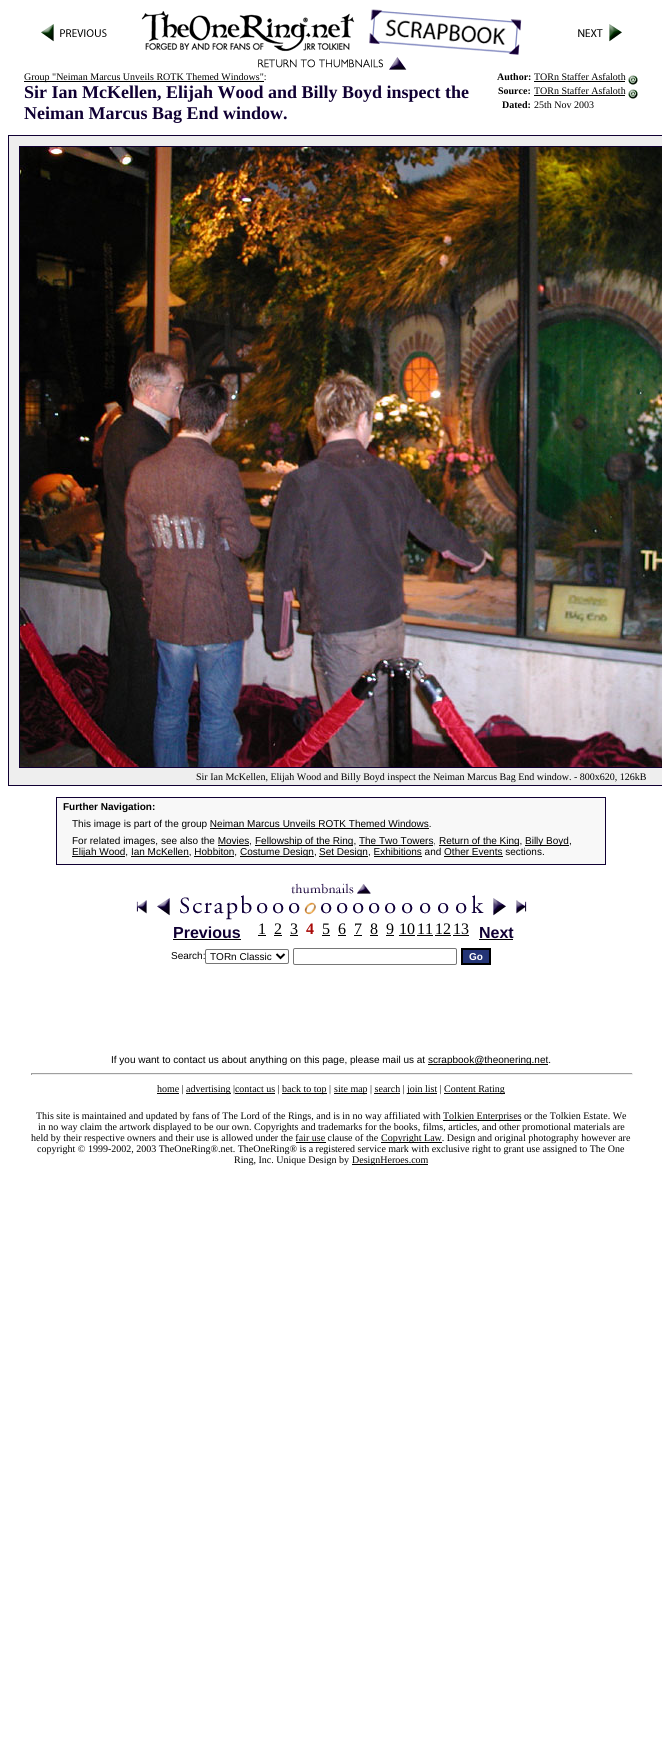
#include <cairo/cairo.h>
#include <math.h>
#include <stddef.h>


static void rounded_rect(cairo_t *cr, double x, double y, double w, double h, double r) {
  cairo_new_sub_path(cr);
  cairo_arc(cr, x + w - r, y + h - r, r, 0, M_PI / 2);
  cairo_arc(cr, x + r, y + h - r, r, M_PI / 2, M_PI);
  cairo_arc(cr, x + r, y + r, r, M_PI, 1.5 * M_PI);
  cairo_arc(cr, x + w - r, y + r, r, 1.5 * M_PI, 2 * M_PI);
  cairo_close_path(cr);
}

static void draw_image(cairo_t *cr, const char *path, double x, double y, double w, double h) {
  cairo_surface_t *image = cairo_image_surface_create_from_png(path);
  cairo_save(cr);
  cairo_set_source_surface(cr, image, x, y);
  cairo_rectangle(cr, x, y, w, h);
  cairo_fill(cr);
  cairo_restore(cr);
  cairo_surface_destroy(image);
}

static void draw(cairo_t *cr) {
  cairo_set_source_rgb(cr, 1, 1, 1);
  cairo_paint(cr);
  draw_image(cr, "images/1.png", 41, 24, 66, 18);
  draw_image(cr, "images/2.png", 141, 9, 381, 46);
  draw_image(cr, "images/3.png", 578, 24, 44, 18);
  draw_image(cr, "images/4.png", 258, 57, 149, 13);
  cairo_set_source_rgb(cr, 0, 0, 0);
  cairo_rectangle(cr, 24, 81, 240, 1);
  cairo_fill(cr);
  cairo_rectangle(cr, 534, 81, 91, 1);
  cairo_fill(cr);
  draw_image(cr, "images/5.png", 628, 75, 10, 10);
  cairo_rectangle(cr, 534, 95, 91, 1);
  cairo_fill(cr);
  draw_image(cr, "images/5.png", 628, 89, 10, 10);
  cairo_rectangle(cr, 8.5, 135.5, 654, 650);
  cairo_set_source_rgb(cr, 16 / 255.0, 0, 51 / 255.0);
  cairo_set_line_width(cr, 1);
  cairo_stroke(cr);
  cairo_set_source_rgb(cr, 238 / 255.0, 238 / 255.0, 238 / 255.0);
  cairo_rectangle(cr, 9, 136, 653, 10);
  cairo_fill(cr);
  cairo_rectangle(cr, 9, 146, 10, 622);
  cairo_fill(cr);
  cairo_rectangle(cr, 19.5, 146.5, 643, 621);
  cairo_set_source_rgb(cr, 16 / 255.0, 0, 51 / 255.0);
  cairo_stroke(cr);
  draw_image(cr, "images/6.png", 20, 147, 642, 620);
  cairo_set_source_rgb(cr, 238 / 255.0, 238 / 255.0, 238 / 255.0);
  cairo_rectangle(cr, 9, 768, 653, 17);
  cairo_fill(cr);
  cairo_set_source_rgb(cr, 248 / 255.0, 248 / 255.0, 248 / 255.0);
  cairo_rectangle(cr, 56.5, 797.5, 549, 67);
  cairo_fill_preserve(cr);
  cairo_set_source_rgb(cr, 16 / 255.0, 0, 51 / 255.0);
  cairo_stroke(cr);
  cairo_set_source_rgb(cr, 0, 0, 0);
  cairo_rectangle(cr, 210, 828, 219, 1);
  cairo_fill(cr);
  cairo_rectangle(cr, 218, 845, 31, 1);
  cairo_fill(cr);
  cairo_rectangle(cr, 255, 845, 98, 1);
  cairo_fill(cr);
  cairo_rectangle(cr, 359, 845, 74, 1);
  cairo_fill(cr);
  cairo_rectangle(cr, 439, 845, 80, 1);
  cairo_fill(cr);
  cairo_rectangle(cr, 525, 845, 44, 1);
  cairo_fill(cr);
  cairo_rectangle(cr, 72, 856, 53, 1);
  cairo_fill(cr);
  cairo_rectangle(cr, 131, 856, 58, 1);
  cairo_fill(cr);
  cairo_rectangle(cr, 194, 856, 40, 1);
  cairo_fill(cr);
  cairo_rectangle(cr, 240, 856, 74, 1);
  cairo_fill(cr);
  cairo_rectangle(cr, 319, 856, 49, 1);
  cairo_fill(cr);
  cairo_rectangle(cr, 374, 856, 48, 1);
  cairo_fill(cr);
  cairo_rectangle(cr, 444, 856, 59, 1);
  cairo_fill(cr);
  draw_image(cr, "images/7.png", 291, 883, 80, 11);
  draw_image(cr, "images/8.png", 136, 900, 11, 14);
  draw_image(cr, "images/9.png", 157, 895, 95, 25);
  cairo_rectangle(cr, 173, 939, 68, 1);
  cairo_fill(cr);
  draw_image(cr, "images/10.png", 257, 903, 11, 11);
  cairo_rectangle(cr, 258, 935, 8, 1);
  cairo_fill(cr);
  draw_image(cr, "images/10.png", 273, 903, 11, 11);
  cairo_rectangle(cr, 274, 935, 8, 1);
  cairo_fill(cr);
  draw_image(cr, "images/10.png", 289, 903, 11, 11);
  cairo_rectangle(cr, 290, 935, 8, 1);
  cairo_fill(cr);
  draw_image(cr, "images/11.png", 304, 902, 12, 13);
  draw_image(cr, "images/10.png", 321, 903, 11, 11);
  cairo_rectangle(cr, 322, 935, 8, 1);
  cairo_fill(cr);
  draw_image(cr, "images/10.png", 337, 903, 11, 11);
  cairo_rectangle(cr, 338, 935, 8, 1);
  cairo_fill(cr);
  draw_image(cr, "images/10.png", 353, 903, 11, 11);
  cairo_rectangle(cr, 354, 935, 8, 1);
  cairo_fill(cr);
  draw_image(cr, "images/10.png", 369, 903, 11, 11);
  cairo_rectangle(cr, 370, 935, 8, 1);
  cairo_fill(cr);
  draw_image(cr, "images/10.png", 385, 903, 11, 11);
  cairo_rectangle(cr, 386, 935, 8, 1);
  cairo_fill(cr);
  draw_image(cr, "images/10.png", 402, 903, 11, 11);
  cairo_rectangle(cr, 399, 935, 16, 1);
  cairo_fill(cr);
  draw_image(cr, "images/10.png", 420, 903, 11, 11);
  cairo_rectangle(cr, 417, 935, 16, 1);
  cairo_fill(cr);
  draw_image(cr, "images/10.png", 438, 903, 11, 11);
  cairo_rectangle(cr, 435, 935, 16, 1);
  cairo_fill(cr);
  draw_image(cr, "images/10.png", 456, 903, 11, 11);
  cairo_rectangle(cr, 453, 935, 16, 1);
  cairo_fill(cr);
  draw_image(cr, "images/12.png", 471, 895, 35, 21);
  draw_image(cr, "images/13.png", 516, 900, 11, 14);
  cairo_rectangle(cr, 479, 939, 34, 1);
  cairo_fill(cr);
  rounded_rect(cr, 205.5, 949.5, 83, 14, 1.5);
  cairo_set_source_rgb(cr, 118 / 255.0, 118 / 255.0, 118 / 255.0);
  cairo_stroke(cr);
  cairo_new_path(cr);
  cairo_move_to(cr, 276.5, 954);
  cairo_line_to(cr, 280.5, 958);
  cairo_line_to(cr, 284.5, 954);
  cairo_set_source_rgb(cr, 0, 0, 0);
  cairo_set_line_width(cr, 2);
  cairo_stroke(cr);
  rounded_rect(cr, 293.5, 948.5, 163, 16, 1.5);
  cairo_set_source_rgb(cr, 118 / 255.0, 118 / 255.0, 118 / 255.0);
  cairo_set_line_width(cr, 1);
  cairo_stroke(cr);
  cairo_set_source_rgb(cr, 35 / 255.0, 52 / 255.0, 118 / 255.0);
  cairo_rectangle(cr, 462, 949, 28, 15);
  cairo_fill_preserve(cr);
  cairo_set_source_rgb(cr, 0, 0, 0);
  cairo_set_line_width(cr, 2);
  cairo_stroke(cr);
  cairo_rectangle(cr, 428, 1064, 120, 1);
  cairo_fill(cr);
  cairo_set_source_rgb(cr, 159 / 255.0, 159 / 255.0, 159 / 255.0);
  cairo_rectangle(cr, 31, 1073, 602, 1);
  cairo_fill(cr);
  cairo_set_source_rgb(cr, 238 / 255.0, 238 / 255.0, 238 / 255.0);
  cairo_rectangle(cr, 632, 1073, 1, 2);
  cairo_fill(cr);
  cairo_rectangle(cr, 31, 1074, 602, 1);
  cairo_fill(cr);
  cairo_set_source_rgb(cr, 159 / 255.0, 159 / 255.0, 159 / 255.0);
  cairo_rectangle(cr, 31, 1073, 1, 2);
  cairo_fill(cr);
  cairo_set_source_rgb(cr, 0, 0, 0);
  cairo_rectangle(cr, 157, 1093, 22, 1);
  cairo_fill(cr);
  cairo_rectangle(cr, 186, 1093, 45, 1);
  cairo_fill(cr);
  cairo_rectangle(cr, 235, 1093, 40, 1);
  cairo_fill(cr);
  cairo_rectangle(cr, 282, 1093, 45, 1);
  cairo_fill(cr);
  cairo_rectangle(cr, 334, 1093, 33, 1);
  cairo_fill(cr);
  cairo_rectangle(cr, 374, 1093, 26, 1);
  cairo_fill(cr);
  cairo_rectangle(cr, 407, 1093, 30, 1);
  cairo_fill(cr);
  cairo_rectangle(cr, 444, 1093, 61, 1);
  cairo_fill(cr);
  cairo_rectangle(cr, 443, 1120, 78, 1);
  cairo_fill(cr);
  cairo_rectangle(cr, 296, 1142, 30, 1);
  cairo_fill(cr);
  cairo_rectangle(cr, 381, 1142, 61, 1);
  cairo_fill(cr);
  cairo_rectangle(cr, 352, 1164, 76, 1);
  cairo_fill(cr);
  cairo_select_font_face(cr, "Liberation Serif", CAIRO_FONT_SLANT_NORMAL, CAIRO_FONT_WEIGHT_NORMAL);
  cairo_set_font_size(cr, 10);
  cairo_move_to(cr, 24, 80);
  cairo_show_text(cr, "Group \"Neiman Marcus Unveils ROTK Themed Windows\":");
  cairo_select_font_face(cr, "Liberation Serif", CAIRO_FONT_SLANT_NORMAL, CAIRO_FONT_WEIGHT_BOLD);
  cairo_set_font_size(cr, 18);
  cairo_set_source_rgb(cr, 16 / 255.0, 0, 51 / 255.0);
  cairo_move_to(cr, 24, 98);
  cairo_show_text(cr, "Sir Ian McKellen, Elijah Wood and Billy Boyd inspect the");
  cairo_move_to(cr, 24, 119);
  cairo_show_text(cr, "Neiman Marcus Bag End window.");
  cairo_set_font_size(cr, 10);
  cairo_set_source_rgb(cr, 0, 0, 0);
  cairo_move_to(cr, 497, 80);
  cairo_show_text(cr, "Author:");
  cairo_select_font_face(cr, "Liberation Serif", CAIRO_FONT_SLANT_NORMAL, CAIRO_FONT_WEIGHT_NORMAL);
  cairo_move_to(cr, 534, 80);
  cairo_show_text(cr, "TORn Staffer Asfaloth");
  cairo_select_font_face(cr, "Liberation Serif", CAIRO_FONT_SLANT_NORMAL, CAIRO_FONT_WEIGHT_BOLD);
  cairo_move_to(cr, 498, 94);
  cairo_show_text(cr, "Source:");
  cairo_select_font_face(cr, "Liberation Serif", CAIRO_FONT_SLANT_NORMAL, CAIRO_FONT_WEIGHT_NORMAL);
  cairo_move_to(cr, 534, 94);
  cairo_show_text(cr, "TORn Staffer Asfaloth");
  cairo_select_font_face(cr, "Liberation Serif", CAIRO_FONT_SLANT_NORMAL, CAIRO_FONT_WEIGHT_BOLD);
  cairo_move_to(cr, 502, 108);
  cairo_show_text(cr, "Dated:");
  cairo_select_font_face(cr, "Liberation Serif", CAIRO_FONT_SLANT_NORMAL, CAIRO_FONT_WEIGHT_NORMAL);
  cairo_move_to(cr, 534, 108);
  cairo_show_text(cr, "25th Nov 2003");
  cairo_move_to(cr, 196, 780);
  cairo_show_text(cr, "Sir Ian McKellen, Elijah Wood and Billy Boyd inspect the Neiman Marcus Bag End window. - 800x620, 126kB");
  cairo_select_font_face(cr, "Liberation Sans", CAIRO_FONT_SLANT_NORMAL, CAIRO_FONT_WEIGHT_BOLD);
  cairo_move_to(cr, 63, 810);
  cairo_show_text(cr, "Further Navigation:");
  cairo_select_font_face(cr, "Liberation Sans", CAIRO_FONT_SLANT_NORMAL, CAIRO_FONT_WEIGHT_NORMAL);
  cairo_move_to(cr, 72, 827);
  cairo_show_text(cr, "This image is part of the group Neiman Marcus Unveils ROTK Themed Windows.");
  cairo_move_to(cr, 72, 844);
  cairo_show_text(cr, "For related images, see also the Movies,");
  cairo_move_to(cr, 255, 844);
  cairo_show_text(cr, "Fellowship of the Ring, The Two Towers,");
  cairo_move_to(cr, 439, 844);
  cairo_show_text(cr, "Return of the King,");
  cairo_move_to(cr, 525, 844);
  cairo_show_text(cr, "Billy Boyd,");
  cairo_move_to(cr, 72, 855);
  cairo_show_text(cr, "Elijah Wood, Ian McKellen, Hobbiton,");
  cairo_move_to(cr, 240, 855);
  cairo_show_text(cr, "Costume Design,");
  cairo_move_to(cr, 319, 855);
  cairo_show_text(cr, "Set Design, Exhibitions and Other Events sections.");
  cairo_select_font_face(cr, "Liberation Sans", CAIRO_FONT_SLANT_NORMAL, CAIRO_FONT_WEIGHT_BOLD);
  cairo_set_font_size(cr, 16);
  cairo_set_source_rgb(cr, 16 / 255.0, 0, 51 / 255.0);
  cairo_move_to(cr, 173, 938);
  cairo_show_text(cr, "Previous");
  cairo_select_font_face(cr, "Liberation Serif", CAIRO_FONT_SLANT_NORMAL, CAIRO_FONT_WEIGHT_NORMAL);
  cairo_set_source_rgb(cr, 0, 0, 0);
  cairo_move_to(cr, 258, 934);
  cairo_show_text(cr, "1");
  cairo_move_to(cr, 274, 934);
  cairo_show_text(cr, "2");
  cairo_move_to(cr, 290, 934);
  cairo_show_text(cr, "3");
  cairo_select_font_face(cr, "Liberation Serif", CAIRO_FONT_SLANT_NORMAL, CAIRO_FONT_WEIGHT_BOLD);
  cairo_set_source_rgb(cr, 169 / 255.0, 10 / 255.0, 8 / 255.0);
  cairo_move_to(cr, 306, 934);
  cairo_show_text(cr, "4");
  cairo_select_font_face(cr, "Liberation Serif", CAIRO_FONT_SLANT_NORMAL, CAIRO_FONT_WEIGHT_NORMAL);
  cairo_set_source_rgb(cr, 0, 0, 0);
  cairo_move_to(cr, 322, 934);
  cairo_show_text(cr, "5");
  cairo_move_to(cr, 338, 934);
  cairo_show_text(cr, "6");
  cairo_move_to(cr, 354, 934);
  cairo_show_text(cr, "7");
  cairo_move_to(cr, 370, 934);
  cairo_show_text(cr, "8");
  cairo_move_to(cr, 386, 934);
  cairo_show_text(cr, "9");
  cairo_move_to(cr, 399, 934);
  cairo_show_text(cr, "10");
  cairo_move_to(cr, 417, 934);
  cairo_show_text(cr, "11");
  cairo_move_to(cr, 435, 934);
  cairo_show_text(cr, "12");
  cairo_move_to(cr, 453, 934);
  cairo_show_text(cr, "13");
  cairo_select_font_face(cr, "Liberation Sans", CAIRO_FONT_SLANT_NORMAL, CAIRO_FONT_WEIGHT_BOLD);
  cairo_set_source_rgb(cr, 16 / 255.0, 0, 51 / 255.0);
  cairo_move_to(cr, 479, 938);
  cairo_show_text(cr, "Next");
  cairo_select_font_face(cr, "Liberation Sans", CAIRO_FONT_SLANT_NORMAL, CAIRO_FONT_WEIGHT_NORMAL);
  cairo_set_font_size(cr, 10);
  cairo_set_source_rgb(cr, 0, 0, 0);
  cairo_move_to(cr, 171, 959);
  cairo_show_text(cr, "Search:");
  cairo_move_to(cr, 210, 960);
  cairo_show_text(cr, "TORn Classic");
  cairo_select_font_face(cr, "Liberation Sans", CAIRO_FONT_SLANT_NORMAL, CAIRO_FONT_WEIGHT_BOLD);
  cairo_set_source_rgb(cr, 1, 1, 1);
  cairo_move_to(cr, 469, 960);
  cairo_show_text(cr, "Go");
  cairo_select_font_face(cr, "Liberation Sans", CAIRO_FONT_SLANT_NORMAL, CAIRO_FONT_WEIGHT_NORMAL);
  cairo_set_source_rgb(cr, 0, 0, 0);
  cairo_move_to(cr, 111, 1063);
  cairo_show_text(cr, "If you want to contact us about anything on this page, please mail us at");
  cairo_move_to(cr, 428, 1063);
  cairo_show_text(cr, "scrapbook@theonering.net.");
  cairo_select_font_face(cr, "Liberation Serif", CAIRO_FONT_SLANT_NORMAL, CAIRO_FONT_WEIGHT_NORMAL);
  cairo_move_to(cr, 157, 1092);
  cairo_show_text(cr, "home |");
  cairo_move_to(cr, 186, 1092);
  cairo_show_text(cr, "advertising |contact us |");
  cairo_move_to(cr, 282, 1092);
  cairo_show_text(cr, "back to top |");
  cairo_move_to(cr, 334, 1092);
  cairo_show_text(cr, "site map | search |");
  cairo_move_to(cr, 407, 1092);
  cairo_show_text(cr, "join list |");
  cairo_move_to(cr, 444, 1092);
  cairo_show_text(cr, "Content Rating");
  cairo_move_to(cr, 36, 1119);
  cairo_show_text(cr, "This site is maintained and updated by fans of The Lord of the Rings, and is in no way affiliated with");
  cairo_move_to(cr, 443, 1119);
  cairo_show_text(cr, "Tolkien Enterprises or the Tolkien Estate. We");
  cairo_move_to(cr, 38, 1130);
  cairo_show_text(cr, "in no way claim the artwork displayed to be our own. Copyrights and trademarks for the books, films, articles, and other promotional materials are");
  cairo_move_to(cr, 31, 1141);
  cairo_show_text(cr, "held by their respective owners and their use is allowed under the fair use clause of the");
  cairo_move_to(cr, 381, 1141);
  cairo_show_text(cr, "Copyright Law. Design and original photography however are");
  cairo_move_to(cr, 37, 1152);
  cairo_show_text(cr, "copyright © 1999-2002, 2003 TheOneRing®.net. TheOneRing® is a registered service mark with exclusive right to grant use assigned to The One");
  cairo_move_to(cr, 234, 1163);
  cairo_show_text(cr, "Ring, Inc. Unique Design by");
  cairo_move_to(cr, 352, 1163);
  cairo_show_text(cr, "DesignHeroes.com");
}

int main(void) {
  cairo_surface_t *surface = cairo_image_surface_create(CAIRO_FORMAT_RGB24, 662, 1763);
  cairo_t *cr = cairo_create(surface);
  cairo_font_options_t *options = cairo_font_options_create();
  cairo_font_options_set_hint_metrics(options, CAIRO_HINT_METRICS_OFF);
  cairo_font_options_set_hint_style(options, CAIRO_HINT_STYLE_NONE);
  cairo_set_font_options(cr, options);
  cairo_set_miter_limit(cr, 4);
  draw(cr);
  cairo_surface_write_to_png(surface, "out.png");
  cairo_font_options_destroy(options);
  cairo_destroy(cr);
  cairo_surface_destroy(surface);
  return 0;
}
